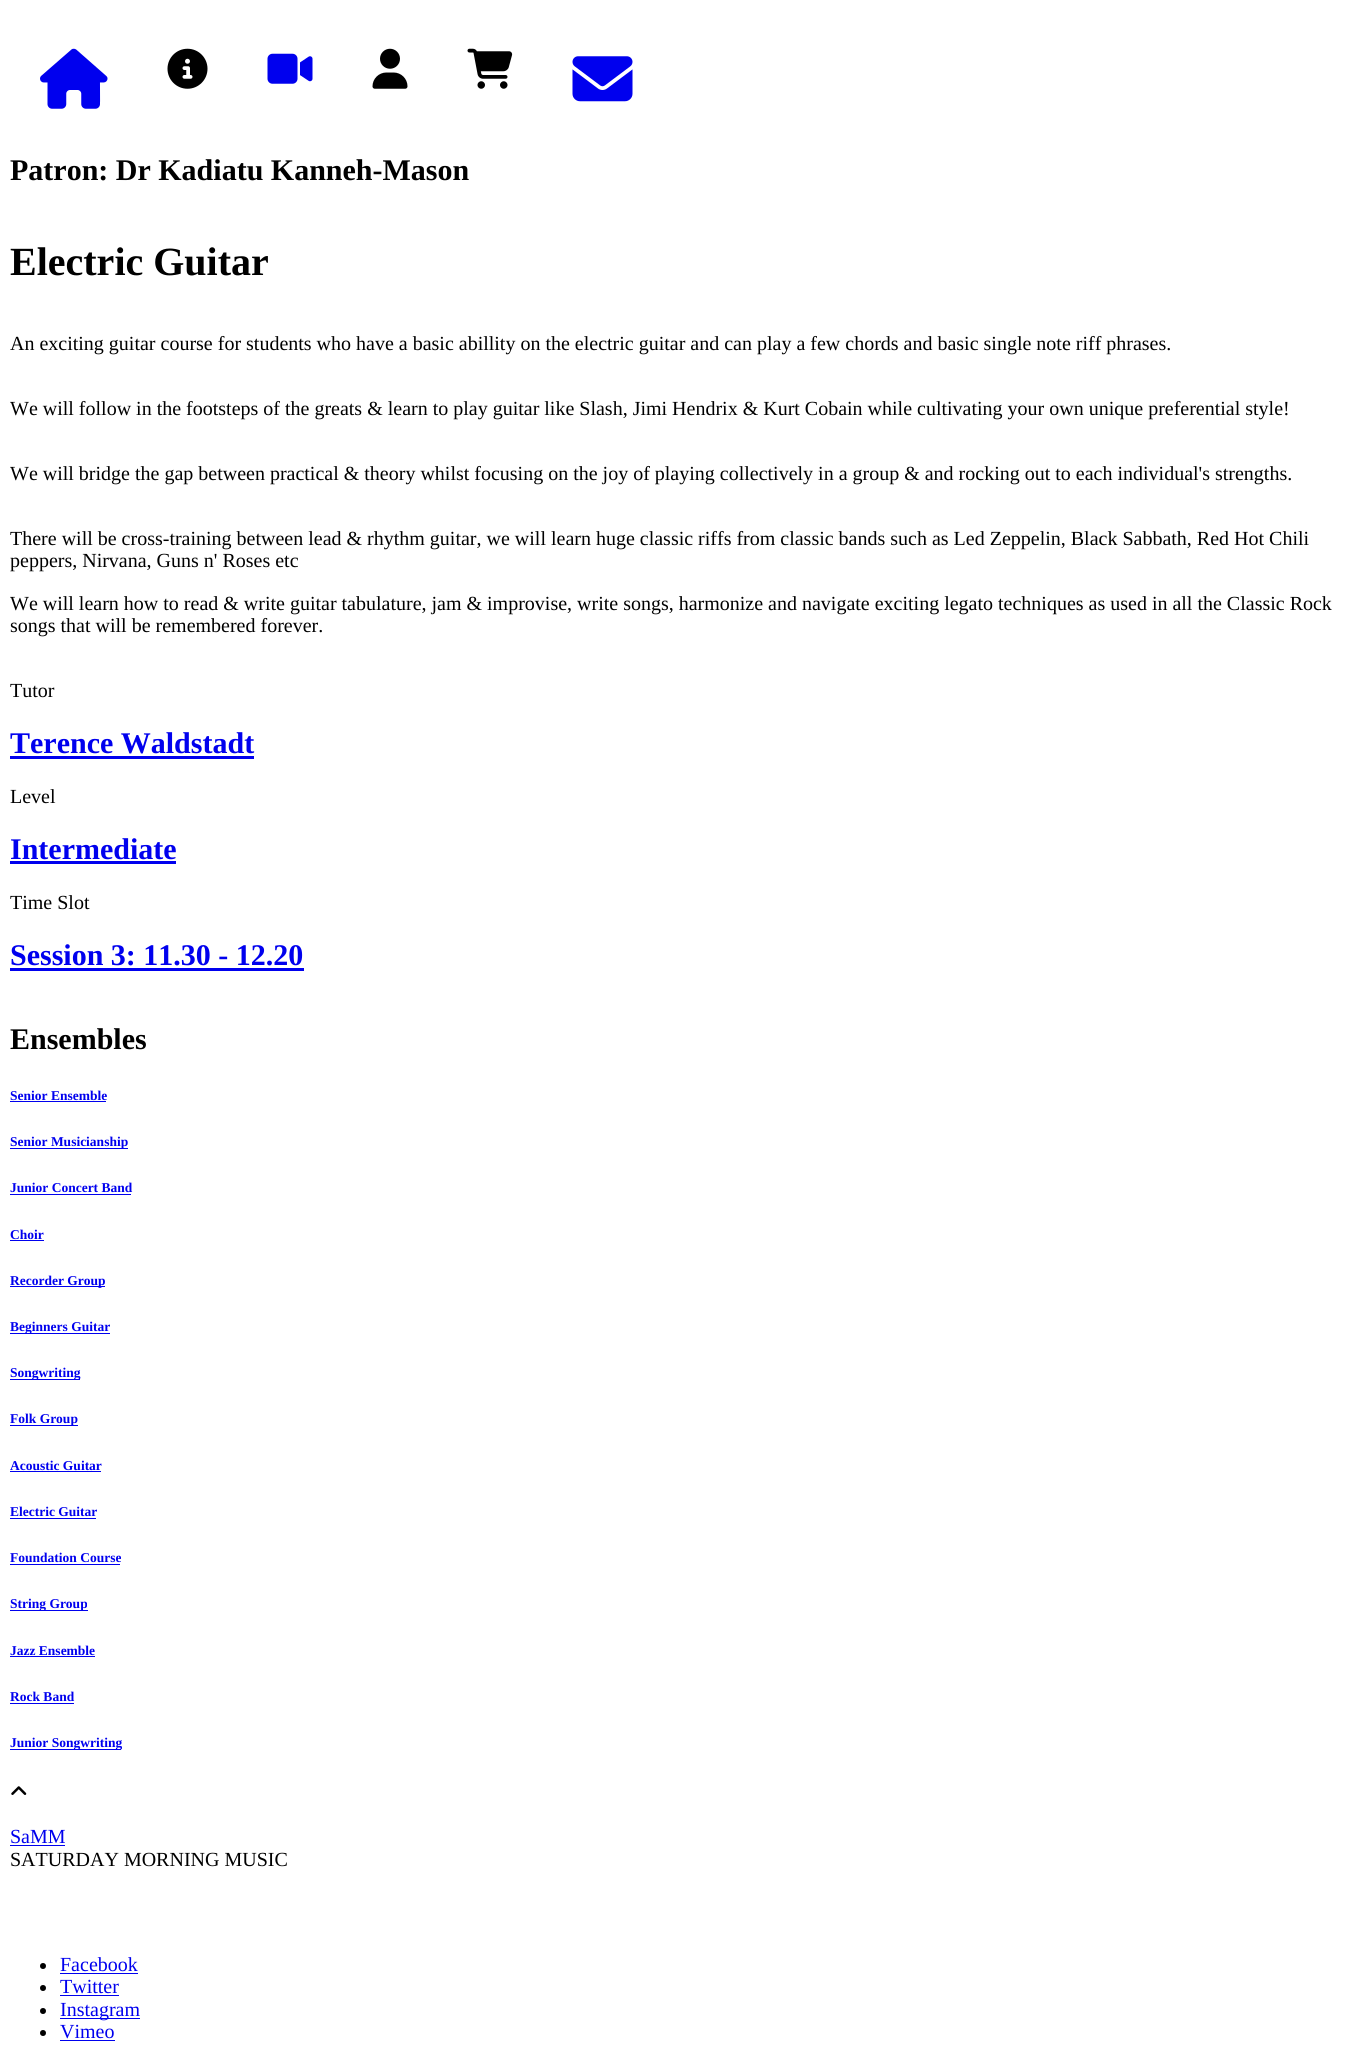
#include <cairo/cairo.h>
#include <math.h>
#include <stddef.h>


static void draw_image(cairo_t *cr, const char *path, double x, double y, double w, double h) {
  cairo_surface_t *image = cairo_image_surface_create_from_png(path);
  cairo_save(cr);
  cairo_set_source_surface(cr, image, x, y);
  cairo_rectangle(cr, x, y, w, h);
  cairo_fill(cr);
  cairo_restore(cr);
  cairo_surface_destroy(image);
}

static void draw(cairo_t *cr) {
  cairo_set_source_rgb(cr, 1, 1, 1);
  cairo_paint(cr);
  draw_image(cr, "images/1.png", 40, 48, 68, 61);
  draw_image(cr, "images/2.png", 167, 48, 41, 41);
  draw_image(cr, "images/3.png", 267, 53, 46, 31);
  draw_image(cr, "images/4.png", 372, 48, 36, 41);
  draw_image(cr, "images/5.png", 467, 48, 46, 41);
  draw_image(cr, "images/6.png", 572, 56, 61, 46);
  cairo_set_source_rgb(cr, 0, 0, 238 / 255.0);
  cairo_rectangle(cr, 10, 756, 244, 3);
  cairo_fill(cr);
  cairo_rectangle(cr, 10, 861, 166, 3);
  cairo_fill(cr);
  cairo_rectangle(cr, 10, 968, 294, 3);
  cairo_fill(cr);
  cairo_rectangle(cr, 10, 1101, 96, 1);
  cairo_fill(cr);
  cairo_rectangle(cr, 10, 1148, 118, 1);
  cairo_fill(cr);
  cairo_rectangle(cr, 10, 1194, 121, 1);
  cairo_fill(cr);
  cairo_rectangle(cr, 10, 1240, 34, 1);
  cairo_fill(cr);
  cairo_rectangle(cr, 10, 1286, 95, 1);
  cairo_fill(cr);
  cairo_rectangle(cr, 10, 1333, 100, 1);
  cairo_fill(cr);
  cairo_rectangle(cr, 10, 1379, 70, 1);
  cairo_fill(cr);
  cairo_rectangle(cr, 10, 1425, 68, 1);
  cairo_fill(cr);
  cairo_rectangle(cr, 10, 1471, 91, 1);
  cairo_fill(cr);
  cairo_rectangle(cr, 10, 1518, 86, 1);
  cairo_fill(cr);
  cairo_rectangle(cr, 10, 1564, 110, 1);
  cairo_fill(cr);
  cairo_rectangle(cr, 10, 1610, 78, 1);
  cairo_fill(cr);
  cairo_rectangle(cr, 10, 1656, 85, 1);
  cairo_fill(cr);
  cairo_rectangle(cr, 10, 1703, 64, 1);
  cairo_fill(cr);
  cairo_rectangle(cr, 10, 1749, 111, 1);
  cairo_fill(cr);
  draw_image(cr, "images/7.png", 11, 1786, 16, 9);
  cairo_rectangle(cr, 10, 1845, 55, 1);
  cairo_fill(cr);
  cairo_set_source_rgb(cr, 0, 0, 0);
  cairo_arc(cr, 43, 1966, 3, 0, 2 * M_PI);
  cairo_fill(cr);
  cairo_set_source_rgb(cr, 0, 0, 238 / 255.0);
  cairo_rectangle(cr, 60, 1973, 78, 1);
  cairo_fill(cr);
  cairo_set_source_rgb(cr, 0, 0, 0);
  cairo_arc(cr, 43, 1988, 3, 0, 2 * M_PI);
  cairo_fill(cr);
  cairo_set_source_rgb(cr, 0, 0, 238 / 255.0);
  cairo_rectangle(cr, 60, 1995, 59, 1);
  cairo_fill(cr);
  cairo_set_source_rgb(cr, 0, 0, 0);
  cairo_arc(cr, 43, 2011, 3, 0, 2 * M_PI);
  cairo_fill(cr);
  cairo_set_source_rgb(cr, 0, 0, 238 / 255.0);
  cairo_rectangle(cr, 60, 2018, 80, 1);
  cairo_fill(cr);
  cairo_set_source_rgb(cr, 0, 0, 0);
  cairo_arc(cr, 43, 2033, 3, 0, 2 * M_PI);
  cairo_fill(cr);
  cairo_set_source_rgb(cr, 0, 0, 238 / 255.0);
  cairo_rectangle(cr, 60, 2040, 55, 1);
  cairo_fill(cr);
  cairo_select_font_face(cr, "Liberation Serif", CAIRO_FONT_SLANT_NORMAL, CAIRO_FONT_WEIGHT_BOLD);
  cairo_set_font_size(cr, 30);
  cairo_set_source_rgb(cr, 0, 0, 0);
  cairo_move_to(cr, 10, 180);
  cairo_show_text(cr, "Patron: Dr Kadiatu Kanneh-Mason");
  cairo_set_font_size(cr, 40);
  cairo_move_to(cr, 10, 275);
  cairo_show_text(cr, "Electric Guitar");
  cairo_select_font_face(cr, "Liberation Serif", CAIRO_FONT_SLANT_NORMAL, CAIRO_FONT_WEIGHT_NORMAL);
  cairo_set_font_size(cr, 20);
  cairo_move_to(cr, 10, 350);
  cairo_show_text(cr, "An exciting guitar course for students who have a basic abillity on the electric guitar and can play a few chords and basic single note riff phrases.");
  cairo_move_to(cr, 10, 415);
  cairo_show_text(cr, "We will follow in the footsteps of the greats & learn to play guitar like Slash, Jimi Hendrix & Kurt Cobain while cultivating your own unique preferential style!");
  cairo_move_to(cr, 10, 480);
  cairo_show_text(cr, "We will bridge the gap between practical & theory whilst focusing on the joy of playing collectively in a group & and rocking out to each individual's strengths.");
  cairo_move_to(cr, 10, 545);
  cairo_show_text(cr, "There will be cross-training between lead & rhythm guitar, we will learn huge classic riffs from classic bands such as Led Zeppelin, Black Sabbath, Red Hot Chili");
  cairo_move_to(cr, 10, 567);
  cairo_show_text(cr, "peppers, Nirvana, Guns n' Roses etc");
  cairo_move_to(cr, 10, 610);
  cairo_show_text(cr, "We will learn how to read & write guitar tabulature, jam & improvise, write songs, harmonize and navigate exciting legato techniques as used in all the Classic Rock");
  cairo_move_to(cr, 10, 632);
  cairo_show_text(cr, "songs that will be remembered forever.");
  cairo_move_to(cr, 10, 697);
  cairo_show_text(cr, "Tutor");
  cairo_select_font_face(cr, "Liberation Serif", CAIRO_FONT_SLANT_NORMAL, CAIRO_FONT_WEIGHT_BOLD);
  cairo_set_font_size(cr, 30);
  cairo_set_source_rgb(cr, 0, 0, 238 / 255.0);
  cairo_move_to(cr, 10, 753);
  cairo_show_text(cr, "Terence Waldstadt");
  cairo_select_font_face(cr, "Liberation Serif", CAIRO_FONT_SLANT_NORMAL, CAIRO_FONT_WEIGHT_NORMAL);
  cairo_set_font_size(cr, 20);
  cairo_set_source_rgb(cr, 0, 0, 0);
  cairo_move_to(cr, 10, 803);
  cairo_show_text(cr, "Level");
  cairo_select_font_face(cr, "Liberation Serif", CAIRO_FONT_SLANT_NORMAL, CAIRO_FONT_WEIGHT_BOLD);
  cairo_set_font_size(cr, 30);
  cairo_set_source_rgb(cr, 0, 0, 238 / 255.0);
  cairo_move_to(cr, 10, 859);
  cairo_show_text(cr, "Intermediate");
  cairo_select_font_face(cr, "Liberation Serif", CAIRO_FONT_SLANT_NORMAL, CAIRO_FONT_WEIGHT_NORMAL);
  cairo_set_font_size(cr, 20);
  cairo_set_source_rgb(cr, 0, 0, 0);
  cairo_move_to(cr, 10, 909);
  cairo_show_text(cr, "Time Slot");
  cairo_select_font_face(cr, "Liberation Serif", CAIRO_FONT_SLANT_NORMAL, CAIRO_FONT_WEIGHT_BOLD);
  cairo_set_font_size(cr, 30);
  cairo_set_source_rgb(cr, 0, 0, 238 / 255.0);
  cairo_move_to(cr, 10, 965);
  cairo_show_text(cr, "Session 3: 11.30 - 12.20");
  cairo_set_source_rgb(cr, 0, 0, 0);
  cairo_move_to(cr, 10, 1049);
  cairo_show_text(cr, "Ensembles");
  cairo_set_font_size(cr, 13.5);
  cairo_set_source_rgb(cr, 0, 0, 238 / 255.0);
  cairo_move_to(cr, 10, 1100);
  cairo_show_text(cr, "Senior Ensemble");
  cairo_move_to(cr, 10, 1146);
  cairo_show_text(cr, "Senior Musicianship");
  cairo_move_to(cr, 10, 1192);
  cairo_show_text(cr, "Junior Concert Band");
  cairo_move_to(cr, 10, 1239);
  cairo_show_text(cr, "Choir");
  cairo_move_to(cr, 10, 1285);
  cairo_show_text(cr, "Recorder Group");
  cairo_move_to(cr, 10, 1331);
  cairo_show_text(cr, "Beginners Guitar");
  cairo_move_to(cr, 10, 1377);
  cairo_show_text(cr, "Songwriting");
  cairo_move_to(cr, 10, 1423);
  cairo_show_text(cr, "Folk Group");
  cairo_move_to(cr, 10, 1470);
  cairo_show_text(cr, "Acoustic Guitar");
  cairo_move_to(cr, 10, 1516);
  cairo_show_text(cr, "Electric Guitar");
  cairo_move_to(cr, 10, 1562);
  cairo_show_text(cr, "Foundation Course");
  cairo_move_to(cr, 10, 1608);
  cairo_show_text(cr, "String Group");
  cairo_move_to(cr, 10, 1655);
  cairo_show_text(cr, "Jazz Ensemble");
  cairo_move_to(cr, 10, 1701);
  cairo_show_text(cr, "Rock Band");
  cairo_move_to(cr, 10, 1747);
  cairo_show_text(cr, "Junior Songwriting");
  cairo_select_font_face(cr, "Liberation Serif", CAIRO_FONT_SLANT_NORMAL, CAIRO_FONT_WEIGHT_NORMAL);
  cairo_set_font_size(cr, 20);
  cairo_move_to(cr, 10, 1843);
  cairo_show_text(cr, "SaMM");
  cairo_set_source_rgb(cr, 0, 0, 0);
  cairo_move_to(cr, 10, 1866);
  cairo_show_text(cr, "SATURDAY MORNING MUSIC");
  cairo_set_source_rgb(cr, 0, 0, 238 / 255.0);
  cairo_move_to(cr, 60, 1971);
  cairo_show_text(cr, "Facebook");
  cairo_move_to(cr, 60, 1993);
  cairo_show_text(cr, "Twitter");
  cairo_move_to(cr, 60, 2016);
  cairo_show_text(cr, "Instagram");
  cairo_move_to(cr, 60, 2038);
  cairo_show_text(cr, "Vimeo");
}

int main(void) {
  cairo_surface_t *surface = cairo_image_surface_create(CAIRO_FORMAT_RGB24, 1352, 2062);
  cairo_t *cr = cairo_create(surface);
  cairo_font_options_t *options = cairo_font_options_create();
  cairo_font_options_set_hint_metrics(options, CAIRO_HINT_METRICS_OFF);
  cairo_font_options_set_hint_style(options, CAIRO_HINT_STYLE_NONE);
  cairo_set_font_options(cr, options);
  cairo_set_miter_limit(cr, 4);
  draw(cr);
  cairo_surface_write_to_png(surface, "out.png");
  cairo_font_options_destroy(options);
  cairo_destroy(cr);
  cairo_surface_destroy(surface);
  return 0;
}
